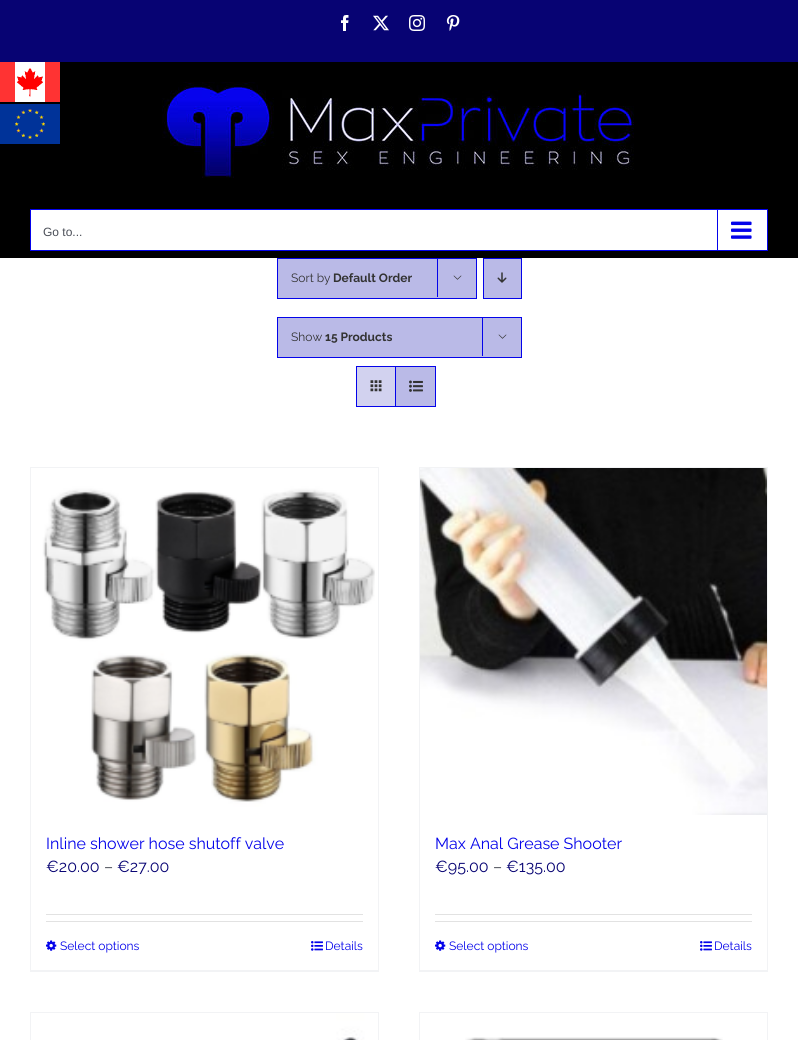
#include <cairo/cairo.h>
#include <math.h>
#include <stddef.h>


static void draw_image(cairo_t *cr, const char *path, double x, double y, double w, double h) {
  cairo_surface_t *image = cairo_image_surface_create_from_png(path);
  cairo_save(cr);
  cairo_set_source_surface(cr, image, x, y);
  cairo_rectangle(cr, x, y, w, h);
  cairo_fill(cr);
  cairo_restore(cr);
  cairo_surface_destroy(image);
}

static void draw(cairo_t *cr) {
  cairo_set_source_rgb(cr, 1, 1, 1);
  cairo_paint(cr);
  cairo_set_source_rgb(cr, 0, 0, 0);
  cairo_rectangle(cr, 0, 62, 798, 196);
  cairo_fill(cr);
  draw_image(cr, "images/1.png", 0, 62, 60, 40);
  draw_image(cr, "images/2.png", 0, 104, 60, 40);
  cairo_set_source_rgb(cr, 7 / 255.0, 3 / 255.0, 115 / 255.0);
  cairo_rectangle(cr, 0, 0, 798, 62);
  cairo_fill(cr);
  draw_image(cr, "images/3.png", 341, 15, 8, 16);
  draw_image(cr, "images/4.png", 373, 15, 16, 16);
  draw_image(cr, "images/5.png", 409, 15, 16, 16);
  draw_image(cr, "images/6.png", 446, 15, 14, 16);
  draw_image(cr, "images/7.png", 162, 82, 472, 96);
  cairo_set_source_rgb(cr, 1, 1, 1);
  cairo_rectangle(cr, 30.5, 209.5, 737, 41);
  cairo_fill_preserve(cr);
  cairo_set_source_rgb(cr, 4 / 255.0, 3 / 255.0, 234 / 255.0);
  cairo_set_line_width(cr, 1);
  cairo_stroke(cr);
  cairo_rectangle(cr, 717, 210, 1, 40);
  cairo_fill(cr);
  draw_image(cr, "images/8.png", 731, 221, 21, 18);
  cairo_set_source_rgb(cr, 186 / 255.0, 186 / 255.0, 231 / 255.0);
  cairo_rectangle(cr, 277.5, 258.5, 199, 40);
  cairo_fill_preserve(cr);
  cairo_set_source_rgb(cr, 4 / 255.0, 3 / 255.0, 234 / 255.0);
  cairo_stroke(cr);
  cairo_rectangle(cr, 437, 258, 1, 39);
  cairo_fill(cr);
  draw_image(cr, "images/9.png", 453, 275, 9, 5);
  cairo_set_source_rgb(cr, 186 / 255.0, 186 / 255.0, 231 / 255.0);
  cairo_rectangle(cr, 483.5, 258.5, 38, 40);
  cairo_fill_preserve(cr);
  cairo_set_source_rgb(cr, 4 / 255.0, 3 / 255.0, 234 / 255.0);
  cairo_stroke(cr);
  draw_image(cr, "images/10.png", 497, 272, 10, 11);
  cairo_set_source_rgb(cr, 186 / 255.0, 186 / 255.0, 231 / 255.0);
  cairo_rectangle(cr, 277.5, 317.5, 244, 40);
  cairo_fill_preserve(cr);
  cairo_set_source_rgb(cr, 4 / 255.0, 3 / 255.0, 234 / 255.0);
  cairo_stroke(cr);
  cairo_rectangle(cr, 482, 317, 1, 39);
  cairo_fill(cr);
  draw_image(cr, "images/9.png", 498, 334, 9, 5);
  cairo_rectangle(cr, 356.5, 366.5, 79, 40);
  cairo_stroke(cr);
  cairo_set_source_rgb(cr, 210 / 255.0, 210 / 255.0, 239 / 255.0);
  cairo_rectangle(cr, 357, 367, 38, 39);
  cairo_fill(cr);
  cairo_set_source_rgb(cr, 4 / 255.0, 3 / 255.0, 234 / 255.0);
  cairo_rectangle(cr, 395, 367, 1, 39);
  cairo_fill(cr);
  draw_image(cr, "images/11.png", 370, 380, 12, 12);
  cairo_set_source_rgb(cr, 186 / 255.0, 186 / 255.0, 231 / 255.0);
  cairo_rectangle(cr, 396, 367, 39, 39);
  cairo_fill(cr);
  draw_image(cr, "images/12.png", 409, 380, 14, 12);
  cairo_set_source_rgb(cr, 242 / 255.0, 243 / 255.0, 245 / 255.0);
  cairo_rectangle(cr, 30, 467, 349, 1);
  cairo_fill(cr);
  cairo_rectangle(cr, 378, 467, 1, 505);
  cairo_fill(cr);
  cairo_rectangle(cr, 30, 970, 349, 2);
  cairo_fill(cr);
  cairo_rectangle(cr, 30, 467, 1, 505);
  cairo_fill(cr);
  draw_image(cr, "images/13.png", 31, 468, 347, 347);
  cairo_set_source_rgb(cr, 226 / 255.0, 226 / 255.0, 226 / 255.0);
  cairo_rectangle(cr, 46, 914, 317, 1);
  cairo_fill(cr);
  cairo_rectangle(cr, 46, 921, 317, 1);
  cairo_fill(cr);
  draw_image(cr, "images/14.png", 46, 940, 11, 11);
  draw_image(cr, "images/15.png", 311, 941, 12, 10);
  cairo_set_source_rgb(cr, 242 / 255.0, 243 / 255.0, 245 / 255.0);
  cairo_rectangle(cr, 419, 467, 349, 1);
  cairo_fill(cr);
  cairo_rectangle(cr, 767, 467, 1, 505);
  cairo_fill(cr);
  cairo_rectangle(cr, 419, 970, 349, 2);
  cairo_fill(cr);
  cairo_rectangle(cr, 419, 467, 1, 505);
  cairo_fill(cr);
  draw_image(cr, "images/16.png", 420, 468, 347, 347);
  cairo_set_source_rgb(cr, 226 / 255.0, 226 / 255.0, 226 / 255.0);
  cairo_rectangle(cr, 435, 914, 317, 1);
  cairo_fill(cr);
  cairo_rectangle(cr, 435, 921, 317, 1);
  cairo_fill(cr);
  draw_image(cr, "images/14.png", 435, 940, 11, 11);
  draw_image(cr, "images/15.png", 700, 941, 12, 10);
  cairo_set_source_rgb(cr, 242 / 255.0, 243 / 255.0, 245 / 255.0);
  cairo_rectangle(cr, 30, 1012, 349, 1);
  cairo_fill(cr);
  cairo_rectangle(cr, 378, 1012, 1, 28);
  cairo_fill(cr);
  cairo_rectangle(cr, 30, 1012, 1, 28);
  cairo_fill(cr);
  draw_image(cr, "images/17.png", 31, 1013, 347, 27);
  cairo_rectangle(cr, 419, 1012, 349, 1);
  cairo_fill(cr);
  cairo_rectangle(cr, 767, 1012, 1, 28);
  cairo_fill(cr);
  cairo_rectangle(cr, 419, 1012, 1, 28);
  cairo_fill(cr);
  draw_image(cr, "images/18.png", 465, 1037, 258, 3);
  cairo_select_font_face(cr, "Liberation Sans", CAIRO_FONT_SLANT_NORMAL, CAIRO_FONT_WEIGHT_NORMAL);
  cairo_set_font_size(cr, 12);
  cairo_set_source_rgb(cr, 74 / 255.0, 78 / 255.0, 87 / 255.0);
  cairo_move_to(cr, 43, 236);
  cairo_show_text(cr, "Go to...");
  cairo_select_font_face(cr, "Raleway", CAIRO_FONT_SLANT_NORMAL, CAIRO_FONT_WEIGHT_NORMAL);
  cairo_set_source_rgb(cr, 51 / 255.0, 51 / 255.0, 51 / 255.0);
  cairo_move_to(cr, 291, 282);
  cairo_show_text(cr, "Sort by");
  cairo_select_font_face(cr, "Raleway", CAIRO_FONT_SLANT_NORMAL, CAIRO_FONT_WEIGHT_BOLD);
  cairo_move_to(cr, 333, 282);
  cairo_show_text(cr, "Default Order");
  cairo_select_font_face(cr, "Raleway", CAIRO_FONT_SLANT_NORMAL, CAIRO_FONT_WEIGHT_NORMAL);
  cairo_move_to(cr, 291, 341);
  cairo_show_text(cr, "Show");
  cairo_select_font_face(cr, "Raleway", CAIRO_FONT_SLANT_NORMAL, CAIRO_FONT_WEIGHT_BOLD);
  cairo_move_to(cr, 325, 341);
  cairo_show_text(cr, "15 Products");
  cairo_select_font_face(cr, "Raleway", CAIRO_FONT_SLANT_NORMAL, CAIRO_FONT_WEIGHT_NORMAL);
  cairo_set_font_size(cr, 16);
  cairo_set_source_rgb(cr, 4 / 255.0, 3 / 255.0, 234 / 255.0);
  cairo_move_to(cr, 46, 849);
  cairo_show_text(cr, "Inline shower hose shutoff valve");
  cairo_set_source_rgb(cr, 7 / 255.0, 3 / 255.0, 115 / 255.0);
  cairo_move_to(cr, 46, 872);
  cairo_show_text(cr, "€20.00");
  cairo_set_source_rgb(cr, 74 / 255.0, 78 / 255.0, 87 / 255.0);
  cairo_move_to(cr, 104, 872);
  cairo_show_text(cr, "–");
  cairo_set_source_rgb(cr, 7 / 255.0, 3 / 255.0, 115 / 255.0);
  cairo_move_to(cr, 117, 872);
  cairo_show_text(cr, "€27.00");
  cairo_set_font_size(cr, 12);
  cairo_set_source_rgb(cr, 4 / 255.0, 3 / 255.0, 234 / 255.0);
  cairo_move_to(cr, 60, 950);
  cairo_show_text(cr, "Select options");
  cairo_move_to(cr, 325, 950);
  cairo_show_text(cr, "Details");
  cairo_set_font_size(cr, 16);
  cairo_move_to(cr, 435, 849);
  cairo_show_text(cr, "Max Anal Grease Shooter");
  cairo_set_source_rgb(cr, 7 / 255.0, 3 / 255.0, 115 / 255.0);
  cairo_move_to(cr, 435, 872);
  cairo_show_text(cr, "€95.00");
  cairo_set_source_rgb(cr, 74 / 255.0, 78 / 255.0, 87 / 255.0);
  cairo_move_to(cr, 493, 872);
  cairo_show_text(cr, "–");
  cairo_set_source_rgb(cr, 7 / 255.0, 3 / 255.0, 115 / 255.0);
  cairo_move_to(cr, 506, 872);
  cairo_show_text(cr, "€135.00");
  cairo_set_font_size(cr, 12);
  cairo_set_source_rgb(cr, 4 / 255.0, 3 / 255.0, 234 / 255.0);
  cairo_move_to(cr, 449, 950);
  cairo_show_text(cr, "Select options");
  cairo_move_to(cr, 714, 950);
  cairo_show_text(cr, "Details");
}

int main(void) {
  cairo_surface_t *surface = cairo_image_surface_create(CAIRO_FORMAT_RGB24, 798, 1040);
  cairo_t *cr = cairo_create(surface);
  cairo_font_options_t *options = cairo_font_options_create();
  cairo_font_options_set_hint_metrics(options, CAIRO_HINT_METRICS_OFF);
  cairo_font_options_set_hint_style(options, CAIRO_HINT_STYLE_NONE);
  cairo_set_font_options(cr, options);
  cairo_set_miter_limit(cr, 4);
  draw(cr);
  cairo_surface_write_to_png(surface, "out.png");
  cairo_font_options_destroy(options);
  cairo_destroy(cr);
  cairo_surface_destroy(surface);
  return 0;
}
